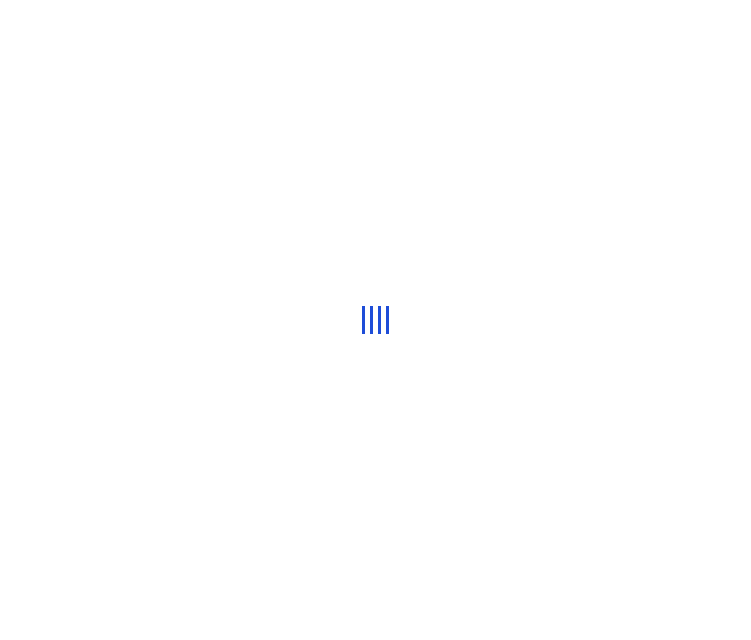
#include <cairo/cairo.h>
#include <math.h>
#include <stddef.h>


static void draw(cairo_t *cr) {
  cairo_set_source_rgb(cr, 1, 1, 1);
  cairo_paint(cr);
  cairo_set_source_rgb(cr, 30 / 255.0, 77 / 255.0, 216 / 255.0);
  cairo_rectangle(cr, 362, 306, 3, 28);
  cairo_fill(cr);
  cairo_rectangle(cr, 370, 306, 3, 28);
  cairo_fill(cr);
  cairo_rectangle(cr, 378, 306, 3, 28);
  cairo_fill(cr);
  cairo_rectangle(cr, 386, 306, 3, 28);
  cairo_fill(cr);
}

int main(void) {
  cairo_surface_t *surface = cairo_image_surface_create(CAIRO_FORMAT_RGB24, 751, 640);
  cairo_t *cr = cairo_create(surface);
  cairo_font_options_t *options = cairo_font_options_create();
  cairo_font_options_set_hint_metrics(options, CAIRO_HINT_METRICS_OFF);
  cairo_font_options_set_hint_style(options, CAIRO_HINT_STYLE_NONE);
  cairo_set_font_options(cr, options);
  cairo_set_miter_limit(cr, 4);
  draw(cr);
  cairo_surface_write_to_png(surface, "out.png");
  cairo_font_options_destroy(options);
  cairo_destroy(cr);
  cairo_surface_destroy(surface);
  return 0;
}
